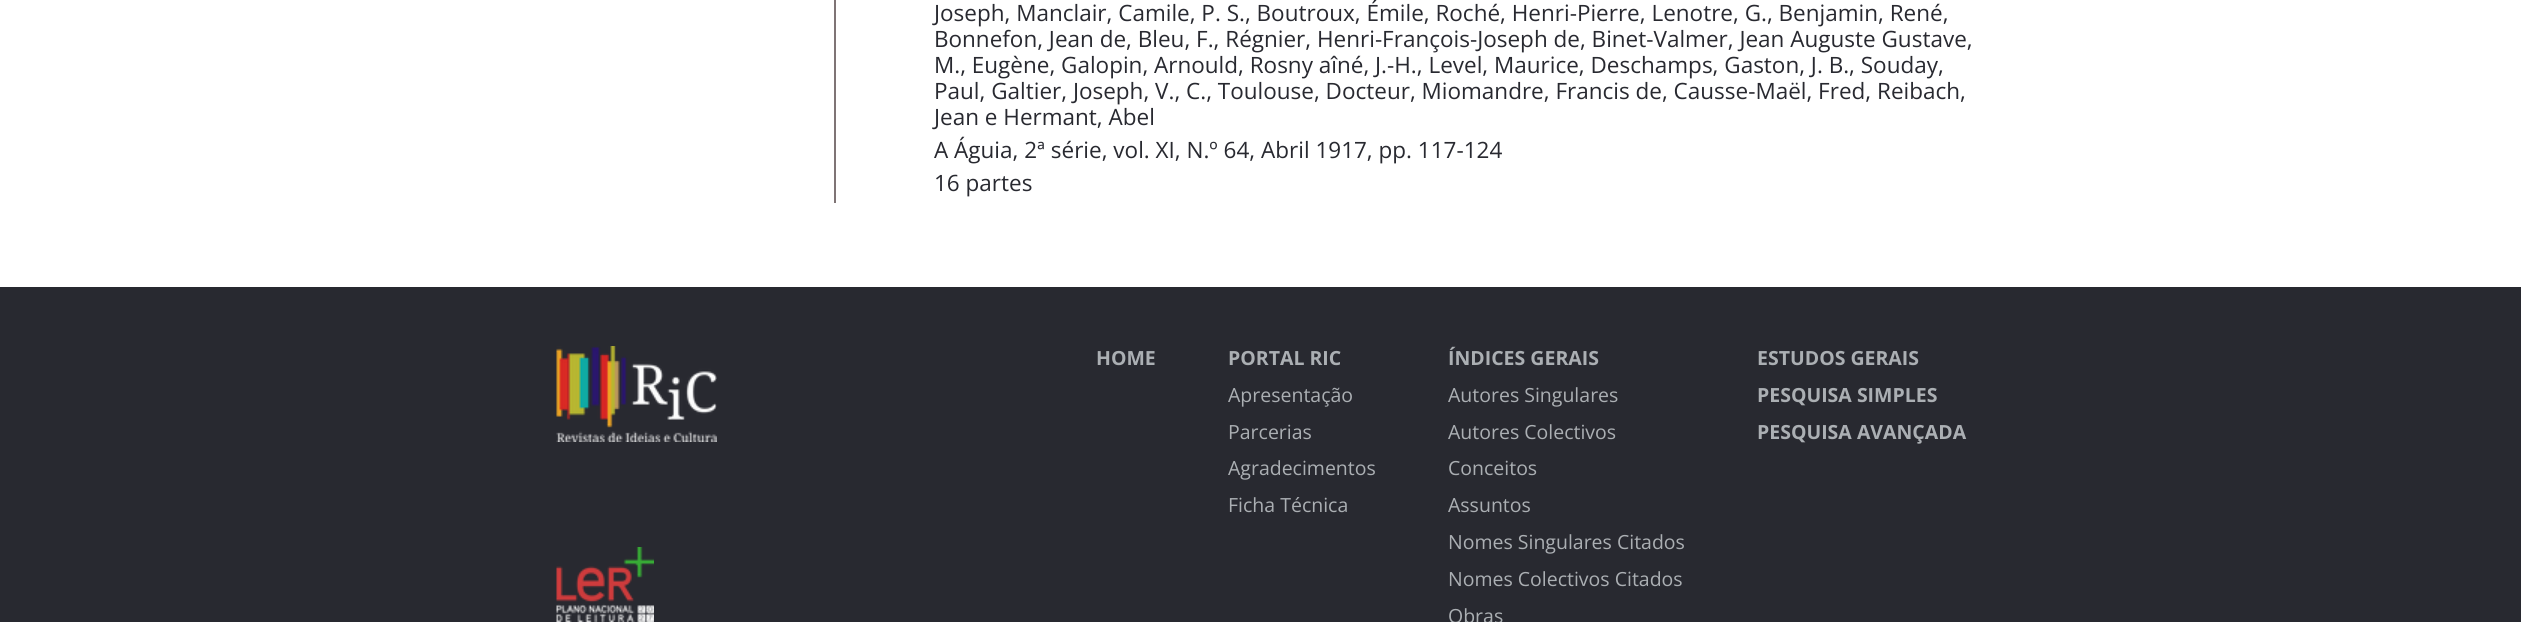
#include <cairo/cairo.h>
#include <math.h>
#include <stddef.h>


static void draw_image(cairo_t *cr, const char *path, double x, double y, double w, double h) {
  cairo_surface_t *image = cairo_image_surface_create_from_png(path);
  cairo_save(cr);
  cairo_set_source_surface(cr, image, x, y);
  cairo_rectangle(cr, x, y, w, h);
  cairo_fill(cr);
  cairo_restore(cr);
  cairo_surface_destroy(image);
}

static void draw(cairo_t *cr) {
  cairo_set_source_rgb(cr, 40 / 255.0, 41 / 255.0, 48 / 255.0);
  cairo_paint(cr);
  cairo_set_source_rgb(cr, 1, 1, 1);
  cairo_rectangle(cr, 0, 0, 2521, 287);
  cairo_fill(cr);
  cairo_set_source_rgb(cr, 127 / 255.0, 116 / 255.0, 117 / 255.0);
  cairo_rectangle(cr, 834, 0, 2, 203);
  cairo_fill(cr);
  draw_image(cr, "images/1.png", 556, 346, 161, 96);
  draw_image(cr, "images/2.png", 556, 547, 98, 75);
  cairo_select_font_face(cr, "Open Sans", CAIRO_FONT_SLANT_NORMAL, CAIRO_FONT_WEIGHT_NORMAL);
  cairo_set_font_size(cr, 22.5);
  cairo_set_source_rgb(cr, 40 / 255.0, 41 / 255.0, 48 / 255.0);
  cairo_move_to(cr, 934, 21);
  cairo_show_text(cr, "Joseph, Manclair, Camile, P. S., Boutroux, Émile, Roché, Henri-Pierre, Lenotre, G., Benjamin, René,");
  cairo_move_to(cr, 934, 47);
  cairo_show_text(cr, "Bonnefon, Jean de, Bleu, F., Régnier, Henri-François-Joseph de, Binet-Valmer, Jean Auguste Gustave,");
  cairo_move_to(cr, 934, 73);
  cairo_show_text(cr, "M., Eugène, Galopin, Arnould, Rosny aîné, J.-H., Level, Maurice, Deschamps, Gaston, J. B., Souday,");
  cairo_move_to(cr, 934, 99);
  cairo_show_text(cr, "Paul, Galtier, Joseph, V., C., Toulouse, Docteur, Miomandre, Francis de, Causse-Maël, Fred, Reibach,");
  cairo_move_to(cr, 934, 125);
  cairo_show_text(cr, "Jean e Hermant, Abel");
  cairo_move_to(cr, 934, 158);
  cairo_show_text(cr, "A Águia, 2ª série, vol. XI, N.º 64, Abril 1917, pp. 117-124");
  cairo_move_to(cr, 934, 191);
  cairo_show_text(cr, "16 partes");
  cairo_select_font_face(cr, "Open Sans", CAIRO_FONT_SLANT_NORMAL, CAIRO_FONT_WEIGHT_BOLD);
  cairo_set_font_size(cr, 19.5);
  cairo_set_source_rgb(cr, 171 / 255.0, 175 / 255.0, 179 / 255.0);
  cairo_move_to(cr, 1096, 365);
  cairo_show_text(cr, "HOME");
  cairo_move_to(cr, 1228, 365);
  cairo_show_text(cr, "PORTAL RIC");
  cairo_select_font_face(cr, "Open Sans", CAIRO_FONT_SLANT_NORMAL, CAIRO_FONT_WEIGHT_NORMAL);
  cairo_move_to(cr, 1228, 402);
  cairo_show_text(cr, "Apresentação");
  cairo_move_to(cr, 1228, 439);
  cairo_show_text(cr, "Parcerias");
  cairo_move_to(cr, 1228, 475);
  cairo_show_text(cr, "Agradecimentos");
  cairo_move_to(cr, 1228, 512);
  cairo_show_text(cr, "Ficha Técnica");
  cairo_select_font_face(cr, "Open Sans", CAIRO_FONT_SLANT_NORMAL, CAIRO_FONT_WEIGHT_BOLD);
  cairo_move_to(cr, 1448, 365);
  cairo_show_text(cr, "ÍNDICES GERAIS");
  cairo_select_font_face(cr, "Open Sans", CAIRO_FONT_SLANT_NORMAL, CAIRO_FONT_WEIGHT_NORMAL);
  cairo_move_to(cr, 1448, 402);
  cairo_show_text(cr, "Autores Singulares");
  cairo_move_to(cr, 1448, 439);
  cairo_show_text(cr, "Autores Colectivos");
  cairo_move_to(cr, 1448, 475);
  cairo_show_text(cr, "Conceitos");
  cairo_move_to(cr, 1448, 512);
  cairo_show_text(cr, "Assuntos");
  cairo_move_to(cr, 1448, 549);
  cairo_show_text(cr, "Nomes Singulares Citados");
  cairo_move_to(cr, 1448, 586);
  cairo_show_text(cr, "Nomes Colectivos Citados");
  cairo_move_to(cr, 1448, 623);
  cairo_show_text(cr, "Obras");
  cairo_select_font_face(cr, "Open Sans", CAIRO_FONT_SLANT_NORMAL, CAIRO_FONT_WEIGHT_BOLD);
  cairo_move_to(cr, 1757, 365);
  cairo_show_text(cr, "ESTUDOS GERAIS");
  cairo_move_to(cr, 1757, 402);
  cairo_show_text(cr, "PESQUISA SIMPLES");
  cairo_move_to(cr, 1757, 439);
  cairo_show_text(cr, "PESQUISA AVANÇADA");
}

int main(void) {
  cairo_surface_t *surface = cairo_image_surface_create(CAIRO_FORMAT_RGB24, 2521, 622);
  cairo_t *cr = cairo_create(surface);
  cairo_font_options_t *options = cairo_font_options_create();
  cairo_font_options_set_hint_metrics(options, CAIRO_HINT_METRICS_OFF);
  cairo_font_options_set_hint_style(options, CAIRO_HINT_STYLE_NONE);
  cairo_set_font_options(cr, options);
  cairo_set_miter_limit(cr, 4);
  draw(cr);
  cairo_surface_write_to_png(surface, "out.png");
  cairo_font_options_destroy(options);
  cairo_destroy(cr);
  cairo_surface_destroy(surface);
  return 0;
}
